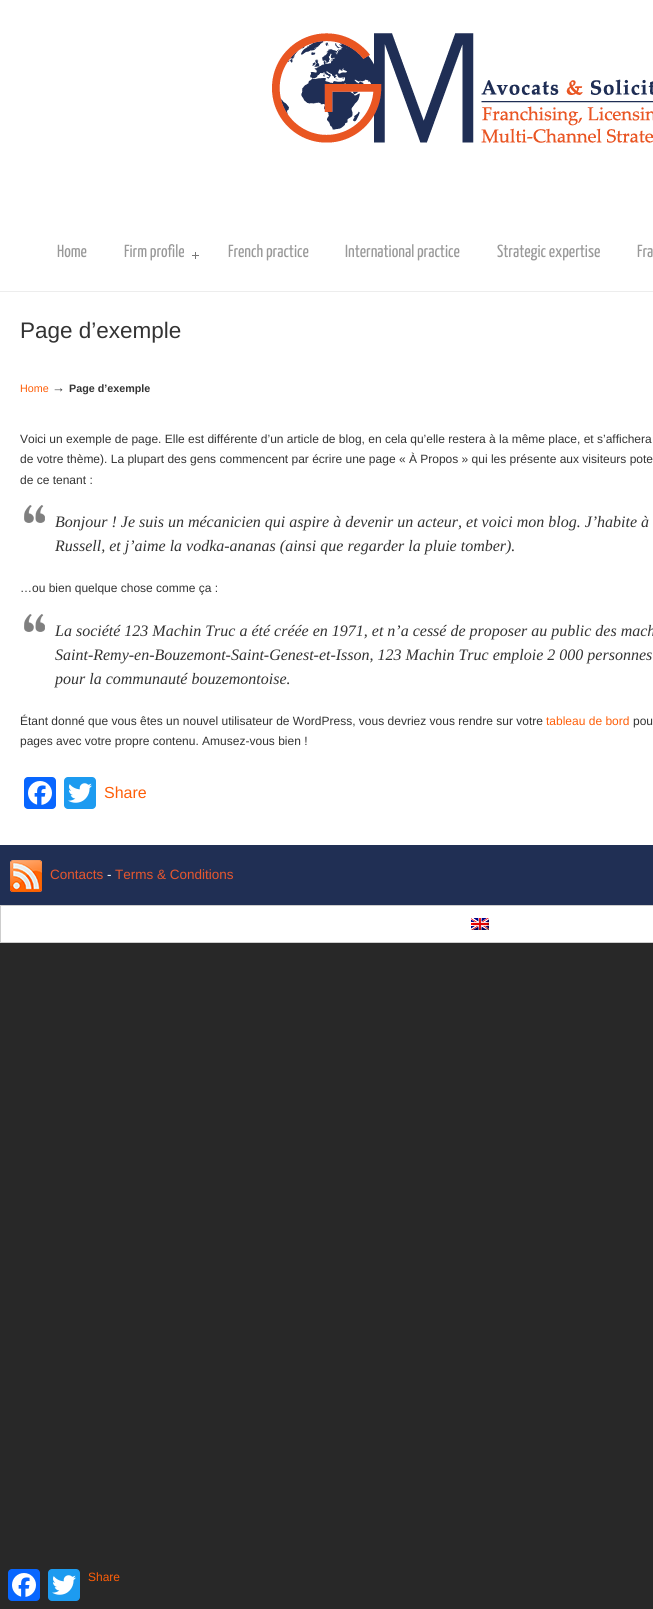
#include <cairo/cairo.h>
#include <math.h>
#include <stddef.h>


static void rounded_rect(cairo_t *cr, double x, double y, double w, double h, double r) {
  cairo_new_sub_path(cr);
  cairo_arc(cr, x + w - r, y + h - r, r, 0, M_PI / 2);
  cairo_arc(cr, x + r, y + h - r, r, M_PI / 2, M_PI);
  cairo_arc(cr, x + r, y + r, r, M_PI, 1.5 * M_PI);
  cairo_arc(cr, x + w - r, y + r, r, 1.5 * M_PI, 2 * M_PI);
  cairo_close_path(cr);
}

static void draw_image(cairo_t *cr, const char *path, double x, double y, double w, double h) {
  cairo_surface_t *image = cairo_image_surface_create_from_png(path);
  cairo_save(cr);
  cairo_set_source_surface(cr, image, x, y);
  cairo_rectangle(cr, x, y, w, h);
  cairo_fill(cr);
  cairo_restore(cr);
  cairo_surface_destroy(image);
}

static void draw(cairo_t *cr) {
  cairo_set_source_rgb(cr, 40 / 255.0, 40 / 255.0, 40 / 255.0);
  cairo_paint(cr);
  cairo_set_source_rgb(cr, 1, 1, 1);
  cairo_rectangle(cr, 0, 0, 653, 845);
  cairo_fill(cr);
  draw_image(cr, "images/1.png", 272, 33, 381, 110);
  cairo_set_source_rgb(cr, 237 / 255.0, 237 / 255.0, 237 / 255.0);
  cairo_rectangle(cr, 0, 291, 653, 1);
  cairo_fill(cr);
  draw_image(cr, "images/2.png", 192, 252, 7, 7);
  draw_image(cr, "images/3.png", 24, 505, 21, 18);
  draw_image(cr, "images/3.png", 24, 614, 21, 18);
  cairo_set_source_rgb(cr, 8 / 255.0, 102 / 255.0, 1);
  rounded_rect(cr, 24, 777, 32, 32, 4);
  cairo_fill(cr);
  draw_image(cr, "images/4.png", 28, 781, 24, 24);
  cairo_set_source_rgb(cr, 29 / 255.0, 155 / 255.0, 240 / 255.0);
  rounded_rect(cr, 64, 777, 32, 32, 4);
  cairo_fill(cr);
  draw_image(cr, "images/5.png", 68, 783, 24, 20);
  cairo_set_source_rgb(cr, 32 / 255.0, 47 / 255.0, 84 / 255.0);
  cairo_rectangle(cr, 0, 845, 653, 60);
  cairo_fill(cr);
  draw_image(cr, "images/6.png", 10, 860, 32, 32);
  cairo_set_source_rgb(cr, 1, 1, 1);
  cairo_rectangle(cr, 0.5, 905.5, 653, 37);
  cairo_fill_preserve(cr);
  cairo_set_source_rgb(cr, 205 / 255.0, 205 / 255.0, 205 / 255.0);
  cairo_set_line_width(cr, 1);
  cairo_stroke(cr);
  draw_image(cr, "images/7.png", 471, 918, 18, 12);
  cairo_set_source_rgb(cr, 8 / 255.0, 102 / 255.0, 1);
  rounded_rect(cr, 8, 1569, 32, 32, 4);
  cairo_fill(cr);
  draw_image(cr, "images/4.png", 12, 1573, 24, 24);
  cairo_set_source_rgb(cr, 29 / 255.0, 155 / 255.0, 240 / 255.0);
  rounded_rect(cr, 48, 1569, 32, 32, 4);
  cairo_fill(cr);
  draw_image(cr, "images/5.png", 52, 1575, 24, 20);
  cairo_select_font_face(cr, "Yanone Kaffeesatz ExtraLight", CAIRO_FONT_SLANT_NORMAL, CAIRO_FONT_WEIGHT_NORMAL);
  cairo_set_font_size(cr, 17.5);
  cairo_set_source_rgb(cr, 153 / 255.0, 153 / 255.0, 153 / 255.0);
  cairo_move_to(cr, 57, 257);
  cairo_show_text(cr, "Home");
  cairo_move_to(cr, 124, 257);
  cairo_show_text(cr, "Firm profile");
  cairo_move_to(cr, 228, 257);
  cairo_show_text(cr, "French practice");
  cairo_move_to(cr, 345, 257);
  cairo_show_text(cr, "International practice");
  cairo_move_to(cr, 497, 257);
  cairo_show_text(cr, "Strategic expertise");
  cairo_move_to(cr, 637, 257);
  cairo_show_text(cr, "Fra");
  cairo_select_font_face(cr, "Liberation Sans", CAIRO_FONT_SLANT_NORMAL, CAIRO_FONT_WEIGHT_NORMAL);
  cairo_set_font_size(cr, 22.5);
  cairo_set_source_rgb(cr, 51 / 255.0, 51 / 255.0, 51 / 255.0);
  cairo_move_to(cr, 20, 338);
  cairo_show_text(cr, "Page d’exemple");
  cairo_set_font_size(cr, 10.75);
  cairo_set_source_rgb(cr, 254 / 255.0, 94 / 255.0, 8 / 255.0);
  cairo_move_to(cr, 20, 392);
  cairo_show_text(cr, "Home");
  cairo_set_font_size(cr, 13);
  cairo_set_source_rgb(cr, 51 / 255.0, 51 / 255.0, 51 / 255.0);
  cairo_move_to(cr, 52, 392);
  cairo_show_text(cr, "→");
  cairo_select_font_face(cr, "Liberation Sans", CAIRO_FONT_SLANT_NORMAL, CAIRO_FONT_WEIGHT_BOLD);
  cairo_set_font_size(cr, 10.75);
  cairo_move_to(cr, 69, 392);
  cairo_show_text(cr, "Page d’exemple");
  cairo_select_font_face(cr, "Liberation Sans", CAIRO_FONT_SLANT_NORMAL, CAIRO_FONT_WEIGHT_NORMAL);
  cairo_set_font_size(cr, 12);
  cairo_move_to(cr, 20, 443);
  cairo_show_text(cr, "Voici un exemple de page. Elle est différente d’un article de blog, en cela qu’elle restera à la même place, et s’affichera");
  cairo_move_to(cr, 20, 463);
  cairo_show_text(cr, "de votre thème). La plupart des gens commencent par écrire une page « À Propos » qui les présente aux visiteurs pote");
  cairo_move_to(cr, 20, 484);
  cairo_show_text(cr, "de ce tenant :");
  cairo_select_font_face(cr, "Liberation Serif", CAIRO_FONT_SLANT_ITALIC, CAIRO_FONT_WEIGHT_NORMAL);
  cairo_set_font_size(cr, 16);
  cairo_move_to(cr, 55, 527);
  cairo_show_text(cr, "Bonjour ! Je suis un mécanicien qui aspire à devenir un acteur, et voici mon blog. J’habite à");
  cairo_move_to(cr, 55, 551);
  cairo_show_text(cr, "Russell, et j’aime la vodka-ananas (ainsi que regarder la pluie tomber).");
  cairo_select_font_face(cr, "Liberation Sans", CAIRO_FONT_SLANT_NORMAL, CAIRO_FONT_WEIGHT_NORMAL);
  cairo_set_font_size(cr, 12);
  cairo_move_to(cr, 20, 592);
  cairo_show_text(cr, "…ou bien quelque chose comme ça :");
  cairo_select_font_face(cr, "Liberation Serif", CAIRO_FONT_SLANT_ITALIC, CAIRO_FONT_WEIGHT_NORMAL);
  cairo_set_font_size(cr, 16);
  cairo_move_to(cr, 55, 636);
  cairo_show_text(cr, "La société 123 Machin Truc a été créée en 1971, et n’a cessé de proposer au public des mach");
  cairo_move_to(cr, 55, 660);
  cairo_show_text(cr, "Saint-Remy-en-Bouzemont-Saint-Genest-et-Isson, 123 Machin Truc emploie 2 000 personnes");
  cairo_move_to(cr, 55, 684);
  cairo_show_text(cr, "pour la communauté bouzemontoise.");
  cairo_select_font_face(cr, "Liberation Sans", CAIRO_FONT_SLANT_NORMAL, CAIRO_FONT_WEIGHT_NORMAL);
  cairo_set_font_size(cr, 12);
  cairo_move_to(cr, 20, 725);
  cairo_show_text(cr, "Étant donné que vous êtes un nouvel utilisateur de WordPress, vous devriez vous rendre sur votre");
  cairo_set_source_rgb(cr, 254 / 255.0, 94 / 255.0, 8 / 255.0);
  cairo_move_to(cr, 546, 725);
  cairo_show_text(cr, "tableau de bord");
  cairo_set_source_rgb(cr, 51 / 255.0, 51 / 255.0, 51 / 255.0);
  cairo_move_to(cr, 633, 725);
  cairo_show_text(cr, "pou");
  cairo_move_to(cr, 20, 745);
  cairo_show_text(cr, "pages avec votre propre contenu. Amusez-vous bien !");
  cairo_set_font_size(cr, 16);
  cairo_set_source_rgb(cr, 254 / 255.0, 94 / 255.0, 8 / 255.0);
  cairo_move_to(cr, 104, 798);
  cairo_show_text(cr, "Share");
  cairo_set_font_size(cr, 13.5);
  cairo_set_source_rgb(cr, 231 / 255.0, 87 / 255.0, 46 / 255.0);
  cairo_move_to(cr, 50, 879);
  cairo_show_text(cr, "Contacts");
  cairo_set_source_rgb(cr, 1, 1, 1);
  cairo_move_to(cr, 107, 879);
  cairo_show_text(cr, "-");
  cairo_set_source_rgb(cr, 231 / 255.0, 87 / 255.0, 46 / 255.0);
  cairo_move_to(cr, 115, 879);
  cairo_show_text(cr, "Terms & Conditions");
  cairo_set_font_size(cr, 12);
  cairo_set_source_rgb(cr, 254 / 255.0, 94 / 255.0, 8 / 255.0);
  cairo_move_to(cr, 88, 1581);
  cairo_show_text(cr, "Share");
}

int main(void) {
  cairo_surface_t *surface = cairo_image_surface_create(CAIRO_FORMAT_RGB24, 653, 1609);
  cairo_t *cr = cairo_create(surface);
  cairo_font_options_t *options = cairo_font_options_create();
  cairo_font_options_set_hint_metrics(options, CAIRO_HINT_METRICS_OFF);
  cairo_font_options_set_hint_style(options, CAIRO_HINT_STYLE_NONE);
  cairo_set_font_options(cr, options);
  cairo_set_miter_limit(cr, 4);
  draw(cr);
  cairo_surface_write_to_png(surface, "out.png");
  cairo_font_options_destroy(options);
  cairo_destroy(cr);
  cairo_surface_destroy(surface);
  return 0;
}
